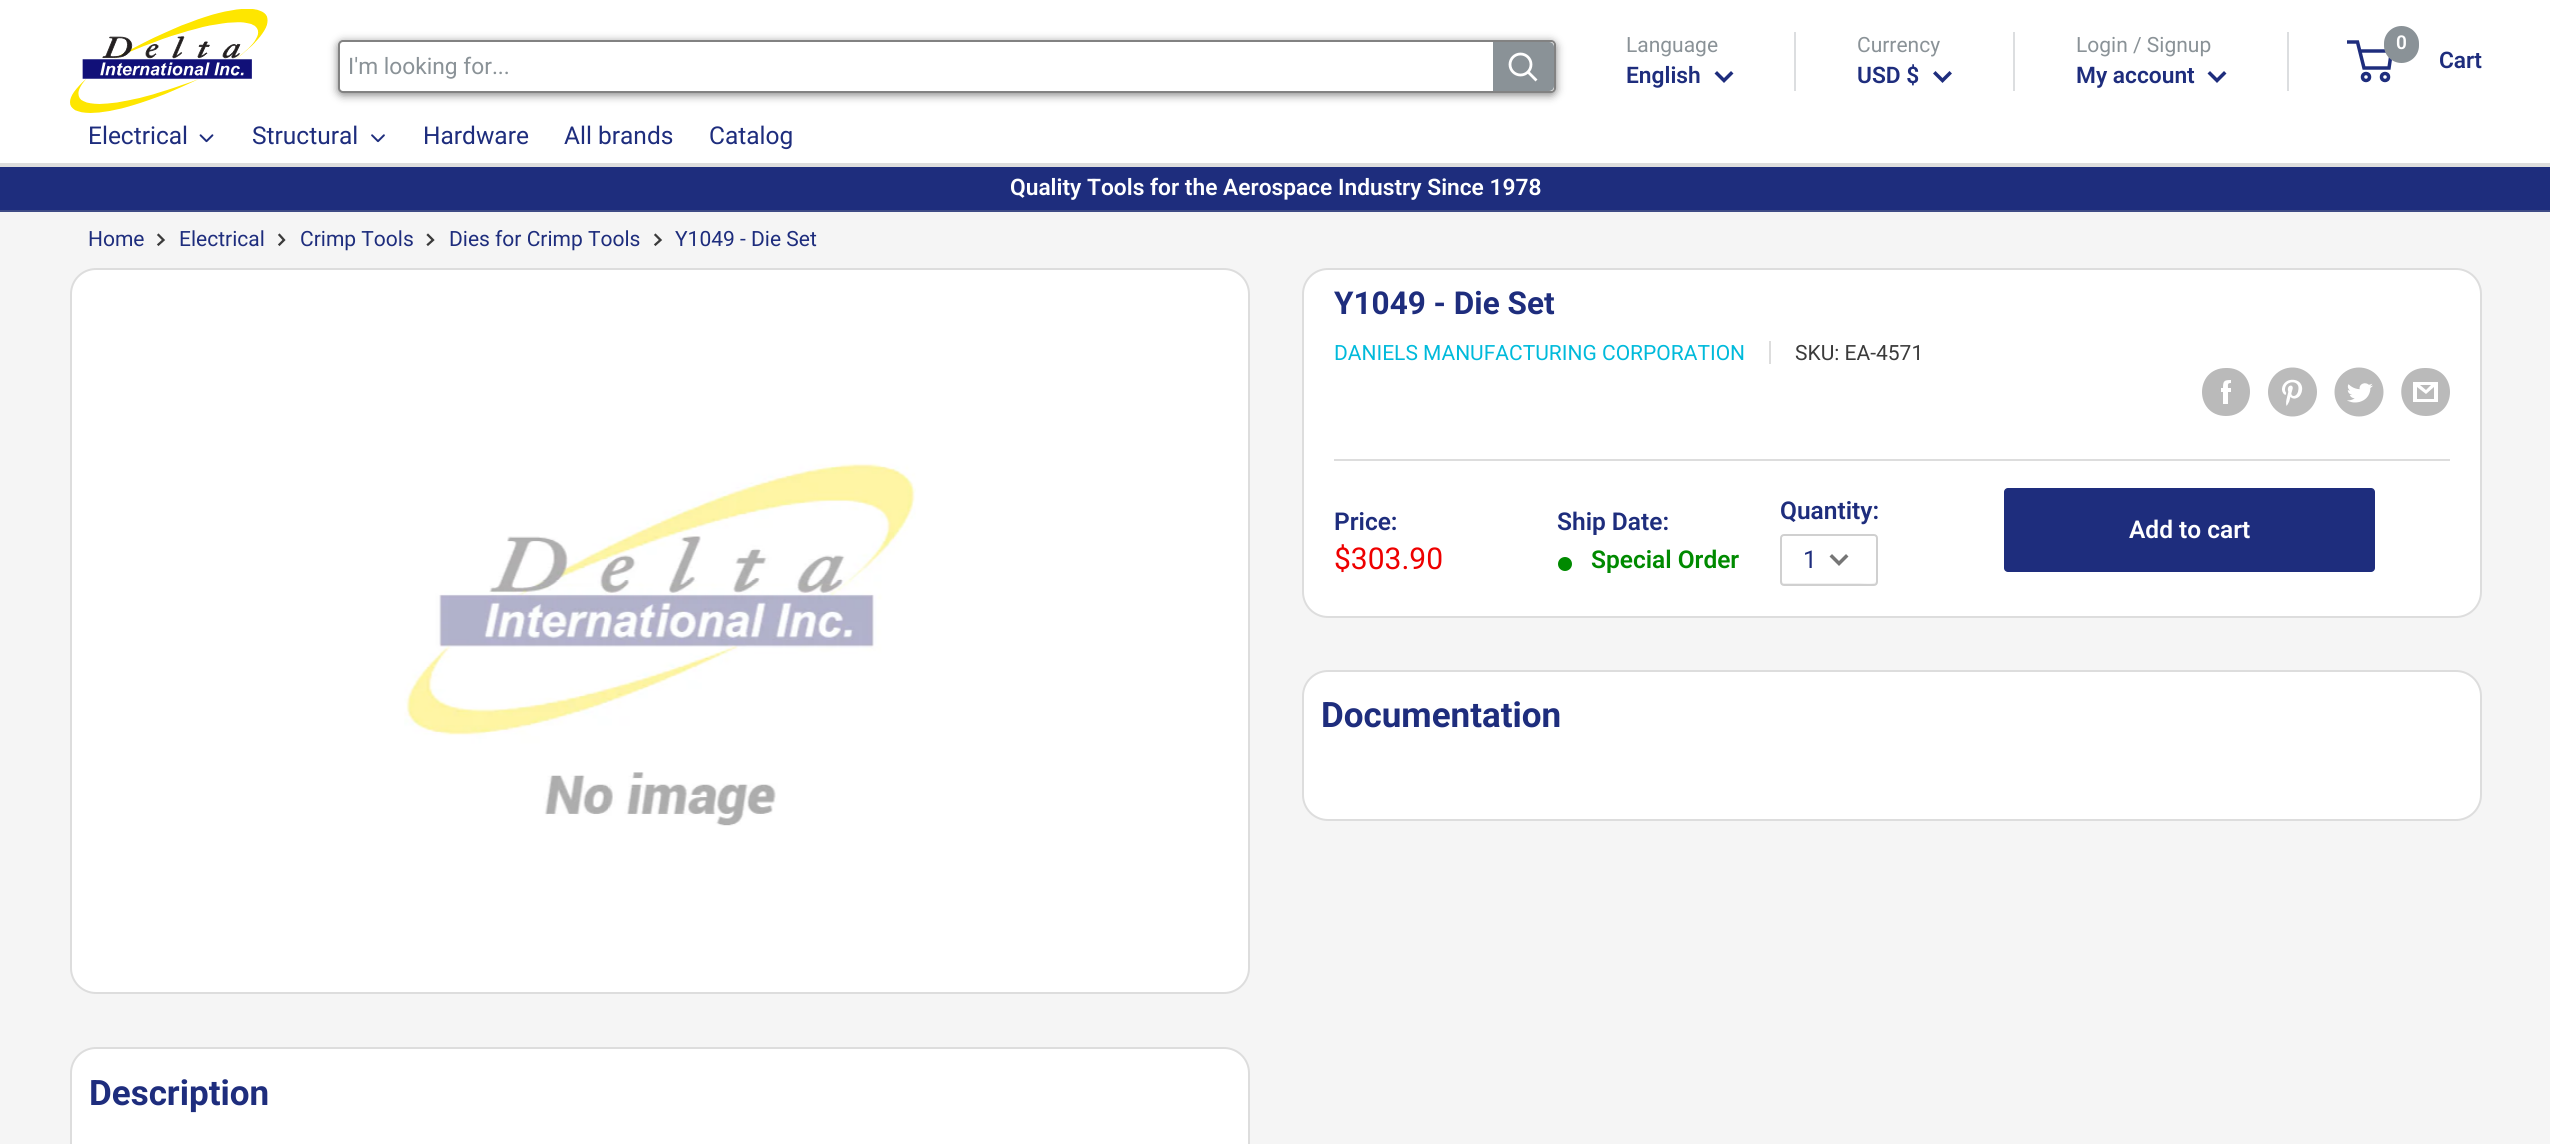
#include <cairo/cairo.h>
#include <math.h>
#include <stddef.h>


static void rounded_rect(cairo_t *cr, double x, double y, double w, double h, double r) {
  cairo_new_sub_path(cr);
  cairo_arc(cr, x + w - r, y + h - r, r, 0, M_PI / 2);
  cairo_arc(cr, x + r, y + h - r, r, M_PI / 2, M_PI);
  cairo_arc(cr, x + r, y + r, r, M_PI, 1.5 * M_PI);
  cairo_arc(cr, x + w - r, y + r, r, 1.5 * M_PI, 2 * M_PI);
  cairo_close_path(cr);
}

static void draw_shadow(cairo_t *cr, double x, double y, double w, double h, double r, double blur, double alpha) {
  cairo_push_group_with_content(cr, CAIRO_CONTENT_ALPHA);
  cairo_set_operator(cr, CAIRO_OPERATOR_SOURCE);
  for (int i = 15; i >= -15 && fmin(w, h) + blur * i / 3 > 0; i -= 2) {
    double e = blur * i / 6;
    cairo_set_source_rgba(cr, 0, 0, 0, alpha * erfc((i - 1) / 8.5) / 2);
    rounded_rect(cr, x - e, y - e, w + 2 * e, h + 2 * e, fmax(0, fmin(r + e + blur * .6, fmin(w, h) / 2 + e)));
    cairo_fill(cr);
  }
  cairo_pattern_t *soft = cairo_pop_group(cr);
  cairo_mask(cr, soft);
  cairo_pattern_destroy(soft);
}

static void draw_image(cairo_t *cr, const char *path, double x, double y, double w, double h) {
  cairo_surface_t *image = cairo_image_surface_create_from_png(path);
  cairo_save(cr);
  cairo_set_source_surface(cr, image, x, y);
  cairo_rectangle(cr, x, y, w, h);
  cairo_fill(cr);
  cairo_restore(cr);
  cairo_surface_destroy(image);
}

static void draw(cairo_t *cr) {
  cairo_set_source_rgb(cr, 245 / 255.0, 245 / 255.0, 245 / 255.0);
  cairo_paint(cr);
  cairo_set_source_rgb(cr, 1, 1, 1);
  cairo_rectangle(cr, 0, 0, 2550, 163);
  cairo_fill(cr);
  draw_image(cr, "images/1.png", 70, 9, 198, 104);
  cairo_set_source_rgb(cr, 130 / 255.0, 130 / 255.0, 130 / 255.0);
  draw_shadow(cr, 338, 42, 1218, 53, 5, 4.5, 1);
  cairo_set_source_rgb(cr, 1, 1, 1);
  rounded_rect(cr, 339, 41, 1216, 51, 4);
  cairo_fill_preserve(cr);
  cairo_set_source_rgb(cr, 130 / 255.0, 130 / 255.0, 130 / 255.0);
  cairo_stroke(cr);
  cairo_set_source_rgb(cr, 138 / 255.0, 146 / 255.0, 151 / 255.0);
  cairo_new_path(cr);
  cairo_move_to(cr, 1493, 42);
  cairo_line_to(cr, 1549, 42);
  cairo_curve_to(cr, 1552, 42, 1554, 44, 1554, 47);
  cairo_line_to(cr, 1554, 86);
  cairo_curve_to(cr, 1554, 89, 1552, 91, 1549, 91);
  cairo_line_to(cr, 1493, 91);
  cairo_close_path(cr);
  cairo_fill(cr);
  cairo_new_path(cr);
  cairo_move_to(cr, 1535.5, 79.5);
  cairo_line_to(cr, 1528.5, 72.5);
  cairo_set_source_rgb(cr, 1, 1, 1);
  cairo_set_line_width(cr, 2.8);
  cairo_set_line_cap(cr, CAIRO_LINE_CAP_SQUARE);
  cairo_stroke(cr);
  cairo_arc(cr, 1520.5, 64.5, 10.5, 0, 2 * M_PI);
  cairo_set_line_cap(cr, CAIRO_LINE_CAP_BUTT);
  cairo_stroke(cr);
  cairo_new_path(cr);
  cairo_move_to(cr, 1731, 73.5);
  cairo_line_to(cr, 1724, 80.5);
  cairo_line_to(cr, 1717, 73.5);
  cairo_set_source_rgb(cr, 30 / 255.0, 45 / 255.0, 125 / 255.0);
  cairo_set_line_width(cr, 3.5);
  cairo_set_line_cap(cr, CAIRO_LINE_CAP_SQUARE);
  cairo_stroke(cr);
  cairo_set_source_rgb(cr, 220 / 255.0, 222 / 255.0, 224 / 255.0);
  cairo_rectangle(cr, 1794, 32, 2, 59);
  cairo_fill(cr);
  cairo_new_path(cr);
  cairo_move_to(cr, 1949.5, 73.5);
  cairo_line_to(cr, 1942.5, 80.5);
  cairo_line_to(cr, 1935.5, 73.5);
  cairo_set_source_rgb(cr, 30 / 255.0, 45 / 255.0, 125 / 255.0);
  cairo_stroke(cr);
  cairo_set_source_rgb(cr, 220 / 255.0, 222 / 255.0, 224 / 255.0);
  cairo_rectangle(cr, 2013, 32, 2, 59);
  cairo_fill(cr);
  cairo_rectangle(cr, 2287, 32, 2, 59);
  cairo_fill(cr);
  cairo_new_path(cr);
  cairo_move_to(cr, 2224, 73.5);
  cairo_line_to(cr, 2217, 80.5);
  cairo_line_to(cr, 2210, 73.5);
  cairo_set_source_rgb(cr, 30 / 255.0, 45 / 255.0, 125 / 255.0);
  cairo_stroke(cr);
  cairo_arc(cr, 2366, 77, 3.5, 0, 2 * M_PI);
  cairo_set_line_cap(cr, CAIRO_LINE_CAP_BUTT);
  cairo_stroke(cr);
  cairo_arc(cr, 2385, 77, 3.5, 0, 2 * M_PI);
  cairo_stroke(cr);
  cairo_new_path(cr);
  cairo_move_to(cr, 2359.5, 51);
  cairo_line_to(cr, 2391.5, 51);
  cairo_line_to(cr, 2389, 68);
  cairo_line_to(cr, 2364, 68);
  cairo_line_to(cr, 2357.5, 42);
  cairo_line_to(cr, 2347, 42);
  cairo_stroke(cr);
  cairo_set_source_rgb(cr, 138 / 255.0, 146 / 255.0, 151 / 255.0);
  rounded_rect(cr, 2384, 26, 35, 37, 17.5);
  cairo_fill(cr);
  cairo_set_source_rgb(cr, 221 / 255.0, 221 / 255.0, 221 / 255.0);
  cairo_rectangle(cr, 0, 163, 2550, 4);
  cairo_fill(cr);
  draw_image(cr, "images/2.png", 199, 134, 15, 9);
  draw_image(cr, "images/3.png", 371, 134, 14, 9);
  cairo_set_source_rgb(cr, 30 / 255.0, 45 / 255.0, 125 / 255.0);
  cairo_rectangle(cr, 0, 167, 2550, 43);
  cairo_fill(cr);
  cairo_set_source_rgb(cr, 62 / 255.0, 75 / 255.0, 133 / 255.0);
  cairo_rectangle(cr, 0, 210, 2550, 2);
  cairo_fill(cr);
  cairo_new_path(cr);
  cairo_move_to(cr, 158.5, 235);
  cairo_line_to(cr, 163.5, 240);
  cairo_line_to(cr, 158.5, 244.5);
  cairo_set_source_rgb(cr, 59 / 255.0, 59 / 255.0, 59 / 255.0);
  cairo_set_line_width(cr, 2.3);
  cairo_set_line_cap(cr, CAIRO_LINE_CAP_SQUARE);
  cairo_stroke(cr);
  cairo_new_path(cr);
  cairo_move_to(cr, 279.5, 235);
  cairo_line_to(cr, 284, 240);
  cairo_line_to(cr, 279.5, 244.5);
  cairo_stroke(cr);
  cairo_new_path(cr);
  cairo_move_to(cr, 428, 235);
  cairo_line_to(cr, 433, 240);
  cairo_line_to(cr, 428, 244.5);
  cairo_stroke(cr);
  cairo_new_path(cr);
  cairo_move_to(cr, 655.5, 235);
  cairo_line_to(cr, 660.5, 240);
  cairo_line_to(cr, 655.5, 244.5);
  cairo_stroke(cr);
  cairo_set_source_rgb(cr, 1, 1, 1);
  rounded_rect(cr, 71, 269, 1178, 724, 25);
  cairo_fill_preserve(cr);
  cairo_set_source_rgb(cr, 221 / 255.0, 221 / 255.0, 221 / 255.0);
  cairo_set_line_width(cr, 2);
  cairo_set_line_cap(cr, CAIRO_LINE_CAP_BUTT);
  cairo_stroke(cr);
  draw_image(cr, "images/4.png", 404, 463, 512, 363);
  cairo_set_source_rgb(cr, 1, 1, 1);
  rounded_rect(cr, 1303, 269, 1178, 348, 25);
  cairo_fill_preserve(cr);
  cairo_set_source_rgb(cr, 221 / 255.0, 221 / 255.0, 221 / 255.0);
  cairo_stroke(cr);
  cairo_rectangle(cr, 1769, 341, 2, 23);
  cairo_fill(cr);
  cairo_set_source_rgb(cr, 186 / 255.0, 186 / 255.0, 186 / 255.0);
  cairo_set_fill_rule(cr, CAIRO_FILL_RULE_EVEN_ODD);
  cairo_new_path(cr);
  cairo_move_to(cr, 2226, 416);
  cairo_curve_to(cr, 2194, 416, 2194, 368, 2226, 368);
  cairo_curve_to(cr, 2258, 367, 2258, 416, 2226, 416);
  cairo_close_path(cr);
  cairo_move_to(cr, 2231, 388);
  cairo_line_to(cr, 2228, 388);
  cairo_curve_to(cr, 2228, 385, 2227, 383, 2231, 383);
  cairo_line_to(cr, 2231, 380);
  cairo_curve_to(cr, 2224, 380, 2223, 381, 2223, 388);
  cairo_line_to(cr, 2221, 388);
  cairo_line_to(cr, 2221, 392);
  cairo_line_to(cr, 2223, 392);
  cairo_line_to(cr, 2223, 404);
  cairo_line_to(cr, 2228, 404);
  cairo_line_to(cr, 2228, 392);
  cairo_line_to(cr, 2231, 392);
  cairo_close_path(cr);
  cairo_fill(cr);
  draw_image(cr, "images/5.png", 2268, 367, 49, 50);
  draw_image(cr, "images/6.png", 2334, 367, 50, 50);
  cairo_set_fill_rule(cr, CAIRO_FILL_RULE_WINDING);
  cairo_new_path(cr);
  cairo_move_to(cr, 2426, 416);
  cairo_curve_to(cr, 2393, 416, 2393, 367, 2426, 368);
  cairo_curve_to(cr, 2458, 368, 2458, 416, 2426, 416);
  cairo_close_path(cr);
  cairo_move_to(cr, 2420, 385);
  cairo_line_to(cr, 2431, 385);
  cairo_line_to(cr, 2426, 390);
  cairo_close_path(cr);
  cairo_move_to(cr, 2434, 387);
  cairo_line_to(cr, 2434, 399);
  cairo_line_to(cr, 2417, 399);
  cairo_line_to(cr, 2417, 387);
  cairo_line_to(cr, 2426, 394);
  cairo_close_path(cr);
  cairo_move_to(cr, 2438, 382);
  cairo_line_to(cr, 2413, 382);
  cairo_line_to(cr, 2413, 402);
  cairo_line_to(cr, 2438, 402);
  cairo_close_path(cr);
  cairo_fill(cr);
  cairo_set_source_rgb(cr, 221 / 255.0, 221 / 255.0, 221 / 255.0);
  cairo_rectangle(cr, 1334, 459, 1116, 2);
  cairo_fill(cr);
  cairo_set_source_rgb(cr, 0, 138 / 255.0, 0);
  cairo_arc(cr, 1565, 564, 7, 0, 2 * M_PI);
  cairo_fill(cr);
  cairo_set_source_rgb(cr, 241 / 255.0, 241 / 255.0, 241 / 255.0);
  cairo_new_path(cr);
  cairo_move_to(cr, 1782, 581);
  cairo_line_to(cr, 1782, 583);
  cairo_curve_to(cr, 1782, 584, 1783, 585, 1784, 585);
  cairo_line_to(cr, 1874, 585);
  cairo_curve_to(cr, 1875, 585, 1876, 584, 1876, 583);
  cairo_line_to(cr, 1876, 581);
  cairo_curve_to(cr, 1876, 585, 1861, 583, 1859, 583);
  cairo_line_to(cr, 1783, 583);
  cairo_close_path(cr);
  cairo_fill(cr);
  rounded_rect(cr, 1781, 535, 96, 50, 3);
  cairo_set_source_rgb(cr, 208 / 255.0, 208 / 255.0, 208 / 255.0);
  cairo_stroke(cr);
  cairo_new_path(cr);
  cairo_move_to(cr, 1846, 556.5);
  cairo_line_to(cr, 1839, 563.5);
  cairo_line_to(cr, 1832, 556.5);
  cairo_set_source_rgb(cr, 118 / 255.0, 118 / 255.0, 118 / 255.0);
  cairo_set_line_width(cr, 3.5);
  cairo_set_line_cap(cr, CAIRO_LINE_CAP_SQUARE);
  cairo_stroke(cr);
  cairo_set_source_rgb(cr, 30 / 255.0, 45 / 255.0, 125 / 255.0);
  rounded_rect(cr, 2004, 488, 371, 84, 4);
  cairo_fill(cr);
  cairo_set_source_rgb(cr, 1, 1, 1);
  rounded_rect(cr, 1303, 671, 1178, 149, 25);
  cairo_fill_preserve(cr);
  cairo_set_source_rgb(cr, 221 / 255.0, 221 / 255.0, 221 / 255.0);
  cairo_set_line_width(cr, 2);
  cairo_set_line_cap(cr, CAIRO_LINE_CAP_BUTT);
  cairo_stroke(cr);
  cairo_set_source_rgb(cr, 1, 1, 1);
  rounded_rect(cr, 71, 1048, 1178, 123, 25);
  cairo_fill_preserve(cr);
  cairo_set_source_rgb(cr, 221 / 255.0, 221 / 255.0, 221 / 255.0);
  cairo_stroke(cr);
  cairo_select_font_face(cr, "Roboto", CAIRO_FONT_SLANT_NORMAL, CAIRO_FONT_WEIGHT_NORMAL);
  cairo_set_font_size(cr, 22.75);
  cairo_set_source_rgb(cr, 138 / 255.0, 146 / 255.0, 151 / 255.0);
  cairo_move_to(cr, 348, 74);
  cairo_show_text(cr, "I'm looking for...");
  cairo_set_font_size(cr, 21);
  cairo_move_to(cr, 1626, 52);
  cairo_show_text(cr, "Language");
  cairo_select_font_face(cr, "Roboto SemiBold", CAIRO_FONT_SLANT_NORMAL, CAIRO_FONT_WEIGHT_NORMAL);
  cairo_set_font_size(cr, 22.75);
  cairo_set_source_rgb(cr, 30 / 255.0, 45 / 255.0, 125 / 255.0);
  cairo_move_to(cr, 1626, 83);
  cairo_show_text(cr, "English");
  cairo_select_font_face(cr, "Roboto", CAIRO_FONT_SLANT_NORMAL, CAIRO_FONT_WEIGHT_NORMAL);
  cairo_set_font_size(cr, 21);
  cairo_set_source_rgb(cr, 138 / 255.0, 146 / 255.0, 151 / 255.0);
  cairo_move_to(cr, 1857, 52);
  cairo_show_text(cr, "Currency");
  cairo_select_font_face(cr, "Roboto SemiBold", CAIRO_FONT_SLANT_NORMAL, CAIRO_FONT_WEIGHT_NORMAL);
  cairo_set_font_size(cr, 22.75);
  cairo_set_source_rgb(cr, 30 / 255.0, 45 / 255.0, 125 / 255.0);
  cairo_move_to(cr, 1857, 83);
  cairo_show_text(cr, "USD $");
  cairo_select_font_face(cr, "Roboto", CAIRO_FONT_SLANT_NORMAL, CAIRO_FONT_WEIGHT_NORMAL);
  cairo_set_font_size(cr, 21);
  cairo_set_source_rgb(cr, 138 / 255.0, 146 / 255.0, 151 / 255.0);
  cairo_move_to(cr, 2076, 52);
  cairo_show_text(cr, "Login / Signup");
  cairo_select_font_face(cr, "Roboto SemiBold", CAIRO_FONT_SLANT_NORMAL, CAIRO_FONT_WEIGHT_NORMAL);
  cairo_set_font_size(cr, 22.75);
  cairo_set_source_rgb(cr, 30 / 255.0, 45 / 255.0, 125 / 255.0);
  cairo_move_to(cr, 2076, 83);
  cairo_show_text(cr, "My account");
  cairo_set_font_size(cr, 19);
  cairo_set_source_rgb(cr, 1, 1, 1);
  cairo_move_to(cr, 2396, 49);
  cairo_show_text(cr, "0");
  cairo_set_font_size(cr, 22.75);
  cairo_set_source_rgb(cr, 30 / 255.0, 45 / 255.0, 125 / 255.0);
  cairo_move_to(cr, 2439, 68);
  cairo_show_text(cr, "Cart");
  cairo_select_font_face(cr, "Roboto", CAIRO_FONT_SLANT_NORMAL, CAIRO_FONT_WEIGHT_NORMAL);
  cairo_set_font_size(cr, 24.5);
  cairo_move_to(cr, 88, 144);
  cairo_show_text(cr, "Electrical");
  cairo_move_to(cr, 252, 144);
  cairo_show_text(cr, "Structural");
  cairo_move_to(cr, 423, 144);
  cairo_show_text(cr, "Hardware");
  cairo_move_to(cr, 564, 144);
  cairo_show_text(cr, "All brands");
  cairo_move_to(cr, 709, 144);
  cairo_show_text(cr, "Catalog");
  cairo_select_font_face(cr, "Roboto SemiBold", CAIRO_FONT_SLANT_NORMAL, CAIRO_FONT_WEIGHT_NORMAL);
  cairo_set_font_size(cr, 22.75);
  cairo_set_source_rgb(cr, 1, 1, 1);
  cairo_move_to(cr, 1010, 195);
  cairo_show_text(cr, "Quality Tools for the Aerospace Industry Since 1978");
  cairo_select_font_face(cr, "Roboto", CAIRO_FONT_SLANT_NORMAL, CAIRO_FONT_WEIGHT_NORMAL);
  cairo_set_font_size(cr, 21);
  cairo_set_source_rgb(cr, 30 / 255.0, 45 / 255.0, 125 / 255.0);
  cairo_move_to(cr, 88, 246);
  cairo_show_text(cr, "Home");
  cairo_move_to(cr, 179, 246);
  cairo_show_text(cr, "Electrical");
  cairo_move_to(cr, 300, 246);
  cairo_show_text(cr, "Crimp Tools");
  cairo_move_to(cr, 449, 246);
  cairo_show_text(cr, "Dies for Crimp Tools");
  cairo_move_to(cr, 675, 246);
  cairo_show_text(cr, "Y1049 - Die Set");
  cairo_select_font_face(cr, "Roboto", CAIRO_FONT_SLANT_NORMAL, CAIRO_FONT_WEIGHT_BOLD);
  cairo_set_font_size(cr, 31.5);
  cairo_move_to(cr, 1334, 314);
  cairo_show_text(cr, "Y1049 - Die Set");
  cairo_select_font_face(cr, "Roboto", CAIRO_FONT_SLANT_NORMAL, CAIRO_FONT_WEIGHT_NORMAL);
  cairo_set_font_size(cr, 21);
  cairo_set_source_rgb(cr, 0, 186 / 255.0, 219 / 255.0);
  cairo_move_to(cr, 1334, 360);
  cairo_show_text(cr, "DANIELS MANUFACTURING CORPORATION");
  cairo_set_source_rgb(cr, 59 / 255.0, 59 / 255.0, 59 / 255.0);
  cairo_move_to(cr, 1795, 360);
  cairo_show_text(cr, "SKU: EA-4571");
  cairo_select_font_face(cr, "Roboto SemiBold", CAIRO_FONT_SLANT_NORMAL, CAIRO_FONT_WEIGHT_NORMAL);
  cairo_set_font_size(cr, 24.5);
  cairo_set_source_rgb(cr, 30 / 255.0, 45 / 255.0, 125 / 255.0);
  cairo_move_to(cr, 1334, 530);
  cairo_show_text(cr, "Price:");
  cairo_select_font_face(cr, "Roboto", CAIRO_FONT_SLANT_NORMAL, CAIRO_FONT_WEIGHT_NORMAL);
  cairo_set_font_size(cr, 30);
  cairo_set_source_rgb(cr, 238 / 255.0, 0, 0);
  cairo_move_to(cr, 1334, 569);
  cairo_show_text(cr, "$303.90");
  cairo_select_font_face(cr, "Roboto SemiBold", CAIRO_FONT_SLANT_NORMAL, CAIRO_FONT_WEIGHT_NORMAL);
  cairo_set_font_size(cr, 24.5);
  cairo_set_source_rgb(cr, 30 / 255.0, 45 / 255.0, 125 / 255.0);
  cairo_move_to(cr, 1557, 530);
  cairo_show_text(cr, "Ship Date:");
  cairo_set_source_rgb(cr, 0, 138 / 255.0, 0);
  cairo_move_to(cr, 1591, 568);
  cairo_show_text(cr, "Special Order");
  cairo_set_source_rgb(cr, 30 / 255.0, 45 / 255.0, 125 / 255.0);
  cairo_move_to(cr, 1780, 519);
  cairo_show_text(cr, "Quantity:");
  cairo_select_font_face(cr, "Roboto", CAIRO_FONT_SLANT_NORMAL, CAIRO_FONT_WEIGHT_NORMAL);
  cairo_move_to(cr, 1803, 568);
  cairo_show_text(cr, "1");
  cairo_select_font_face(cr, "Roboto SemiBold", CAIRO_FONT_SLANT_NORMAL, CAIRO_FONT_WEIGHT_NORMAL);
  cairo_set_source_rgb(cr, 1, 1, 1);
  cairo_move_to(cr, 2129, 538);
  cairo_show_text(cr, "Add to cart");
  cairo_select_font_face(cr, "Roboto", CAIRO_FONT_SLANT_NORMAL, CAIRO_FONT_WEIGHT_BOLD);
  cairo_set_font_size(cr, 35);
  cairo_set_source_rgb(cr, 30 / 255.0, 45 / 255.0, 125 / 255.0);
  cairo_move_to(cr, 1321, 727);
  cairo_show_text(cr, "Documentation");
  cairo_move_to(cr, 89, 1105);
  cairo_show_text(cr, "Description");
}

int main(void) {
  cairo_surface_t *surface = cairo_image_surface_create(CAIRO_FORMAT_RGB24, 2550, 1144);
  cairo_t *cr = cairo_create(surface);
  cairo_font_options_t *options = cairo_font_options_create();
  cairo_font_options_set_hint_metrics(options, CAIRO_HINT_METRICS_OFF);
  cairo_font_options_set_hint_style(options, CAIRO_HINT_STYLE_NONE);
  cairo_set_font_options(cr, options);
  cairo_set_miter_limit(cr, 4);
  draw(cr);
  cairo_surface_write_to_png(surface, "out.png");
  cairo_font_options_destroy(options);
  cairo_destroy(cr);
  cairo_surface_destroy(surface);
  return 0;
}
